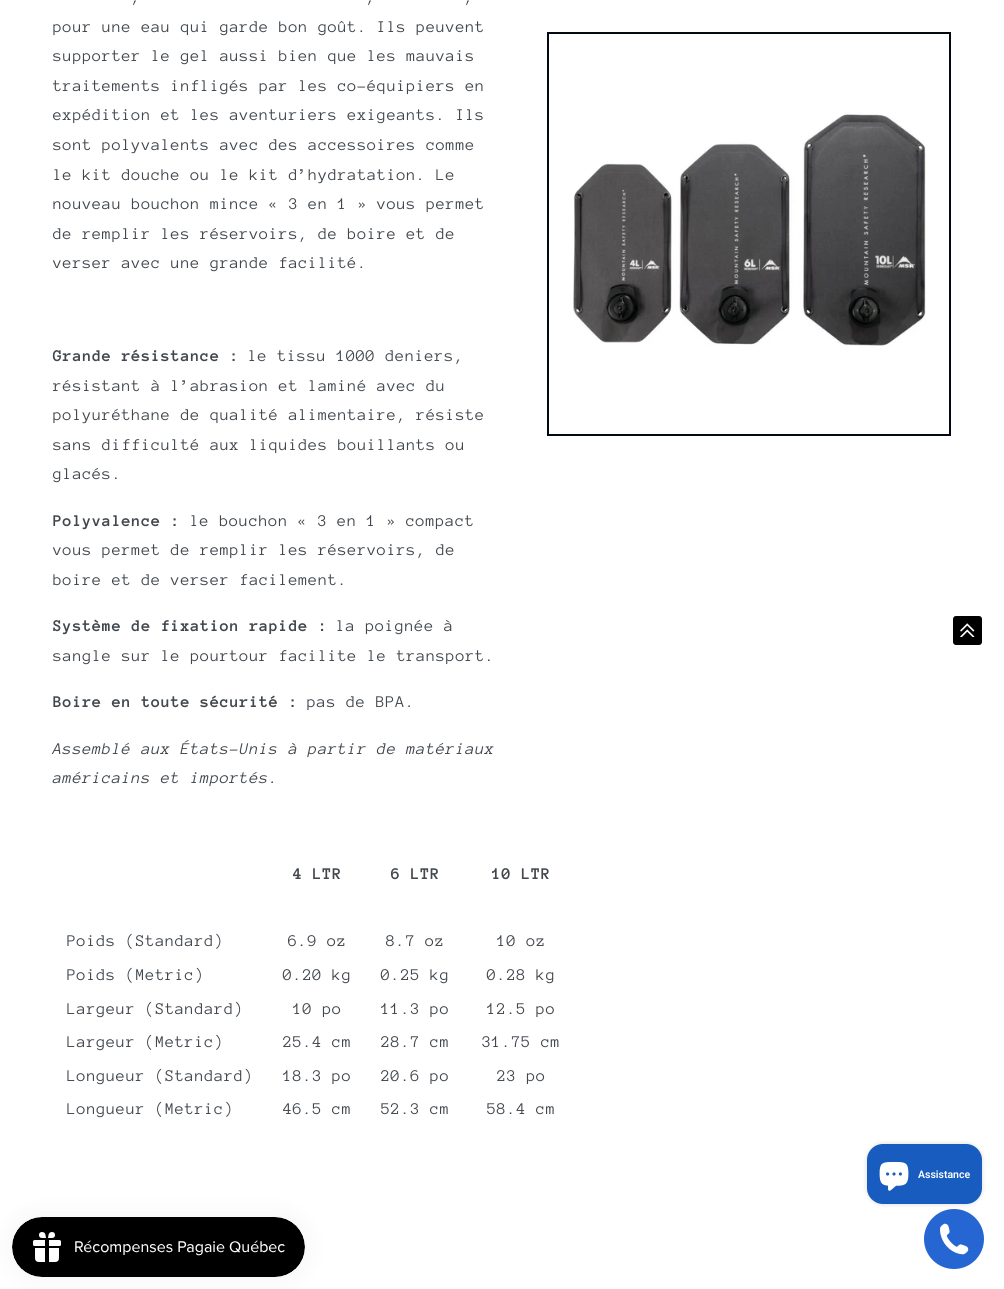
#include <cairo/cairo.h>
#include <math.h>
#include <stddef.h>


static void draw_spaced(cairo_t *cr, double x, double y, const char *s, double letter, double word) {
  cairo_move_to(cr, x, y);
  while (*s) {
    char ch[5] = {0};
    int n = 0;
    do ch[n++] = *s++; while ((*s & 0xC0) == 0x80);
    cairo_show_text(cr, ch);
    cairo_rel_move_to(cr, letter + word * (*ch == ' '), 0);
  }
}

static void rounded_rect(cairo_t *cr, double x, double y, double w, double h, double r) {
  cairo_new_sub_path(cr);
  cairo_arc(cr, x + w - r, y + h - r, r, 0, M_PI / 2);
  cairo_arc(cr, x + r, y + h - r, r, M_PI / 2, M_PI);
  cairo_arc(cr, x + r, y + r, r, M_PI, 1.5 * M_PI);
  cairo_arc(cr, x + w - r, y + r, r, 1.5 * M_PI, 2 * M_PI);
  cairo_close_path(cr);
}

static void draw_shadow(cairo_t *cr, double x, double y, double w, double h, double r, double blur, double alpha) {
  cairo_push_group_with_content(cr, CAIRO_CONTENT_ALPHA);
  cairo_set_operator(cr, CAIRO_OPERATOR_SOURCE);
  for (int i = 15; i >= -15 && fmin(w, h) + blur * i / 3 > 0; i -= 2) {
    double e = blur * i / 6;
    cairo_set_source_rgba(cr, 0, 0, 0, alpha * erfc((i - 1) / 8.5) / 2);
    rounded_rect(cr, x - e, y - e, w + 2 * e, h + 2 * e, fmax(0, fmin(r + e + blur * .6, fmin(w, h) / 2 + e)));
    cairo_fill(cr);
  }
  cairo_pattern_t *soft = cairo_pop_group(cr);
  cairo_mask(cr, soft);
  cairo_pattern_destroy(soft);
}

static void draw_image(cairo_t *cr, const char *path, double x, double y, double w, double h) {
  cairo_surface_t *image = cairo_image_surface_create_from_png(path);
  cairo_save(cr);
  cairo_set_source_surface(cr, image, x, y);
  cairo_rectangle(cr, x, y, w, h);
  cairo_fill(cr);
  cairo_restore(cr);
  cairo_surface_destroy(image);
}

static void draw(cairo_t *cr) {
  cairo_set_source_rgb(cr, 1, 1, 1);
  cairo_paint(cr);
  cairo_rectangle(cr, 548, 33, 402, 402);
  cairo_set_source_rgb(cr, 2 / 255.0, 9 / 255.0, 18 / 255.0);
  cairo_stroke(cr);
  draw_image(cr, "images/1.png", 573, 112, 353, 234);
  cairo_set_source_rgb(cr, 0, 0, 0);
  rounded_rect(cr, 953, 616, 29, 29, 3);
  cairo_fill(cr);
  draw_image(cr, "images/2.png", 960, 623, 15, 14);
  cairo_set_source_rgb(cr, 0, 0, 0);
  draw_shadow(cr, 867, 1144, 115, 60, 16, 2.5, 0.15);
  cairo_set_source_rgb(cr, 23 / 255.0, 92 / 255.0, 190 / 255.0);
  rounded_rect(cr, 867, 1144, 115, 60, 16);
  cairo_fill(cr);
  draw_image(cr, "images/3.png", 879, 1162, 30, 29);
  cairo_set_source_rgb(cr, 0, 0, 0);
  draw_shadow(cr, 12, 1217, 293, 60, 30, 12.5, 0.05);
  draw_image(cr, "images/4.png", 12, 1217, 293, 60);
  cairo_set_source_rgb(cr, 37 / 255.0, 102 / 255.0, 211 / 255.0);
  cairo_arc(cr, 954, 1239, 30, 0, 2 * M_PI);
  cairo_fill(cr);
  draw_image(cr, "images/5.png", 940, 1223, 29, 32);
  cairo_select_font_face(cr, "Anonymous Pro", CAIRO_FONT_SLANT_NORMAL, CAIRO_FONT_WEIGHT_NORMAL);
  cairo_set_font_size(cr, 16.8);
  cairo_set_source_rgb(cr, 65 / 255.0, 71 / 255.0, 77 / 255.0);
  draw_spaced(cr, 131, 2, ",", 0.65, 0);
  draw_spaced(cr, 366, 2, ",", 0.65, 0);
  draw_spaced(cr, 464, 2, ",", 0.65, 0);
  draw_spaced(cr, 53, 32, "pour une eau qui garde bon goût. Ils peuvent", 0.65, 0);
  draw_spaced(cr, 53, 61, "supporter le gel aussi bien que les mauvais", 0.65, 0);
  draw_spaced(cr, 53, 91, "traitements infligés par les co-équipiers en", 0.65, 0);
  draw_spaced(cr, 53, 120, "expédition et les aventuriers exigeants. Ils", 0.65, 0);
  draw_spaced(cr, 53, 150, "sont polyvalents avec des accessoires comme", 0.65, 0);
  draw_spaced(cr, 53, 180, "le kit douche ou le kit d’hydratation. Le", 0.65, 0);
  draw_spaced(cr, 53, 209, "nouveau bouchon mince « 3 en 1 » vous permet", 0.65, 0);
  draw_spaced(cr, 53, 239, "de remplir les réservoirs, de boire et de", 0.65, 0);
  draw_spaced(cr, 53, 268, "verser avec une grande facilité.", 0.65, 0);
  cairo_select_font_face(cr, "Anonymous Pro", CAIRO_FONT_SLANT_NORMAL, CAIRO_FONT_WEIGHT_BOLD);
  draw_spaced(cr, 53, 361, "Grande résistance :", 0.65, 0);
  cairo_select_font_face(cr, "Anonymous Pro", CAIRO_FONT_SLANT_NORMAL, CAIRO_FONT_WEIGHT_NORMAL);
  draw_spaced(cr, 248, 361, "le tissu 1000 deniers,", 0.65, 0);
  draw_spaced(cr, 53, 391, "résistant à l’abrasion et laminé avec du", 0.65, 0);
  draw_spaced(cr, 53, 420, "polyuréthane de qualité alimentaire, résiste", 0.65, 0);
  draw_spaced(cr, 53, 450, "sans difficulté aux liquides bouillants ou", 0.65, 0);
  draw_spaced(cr, 53, 479, "glacés.", 0.65, 0);
  cairo_select_font_face(cr, "Anonymous Pro", CAIRO_FONT_SLANT_NORMAL, CAIRO_FONT_WEIGHT_BOLD);
  draw_spaced(cr, 53, 526, "Polyvalence :", 0.65, 0);
  cairo_select_font_face(cr, "Anonymous Pro", CAIRO_FONT_SLANT_NORMAL, CAIRO_FONT_WEIGHT_NORMAL);
  draw_spaced(cr, 190, 526, "le bouchon « 3 en 1 » compact", 0.65, 0);
  draw_spaced(cr, 53, 555, "vous permet de remplir les réservoirs, de", 0.65, 0);
  draw_spaced(cr, 53, 585, "boire et de verser facilement.", 0.65, 0);
  cairo_select_font_face(cr, "Anonymous Pro", CAIRO_FONT_SLANT_NORMAL, CAIRO_FONT_WEIGHT_BOLD);
  draw_spaced(cr, 53, 631, "Système de fixation rapide :", 0.65, 0);
  cairo_select_font_face(cr, "Anonymous Pro", CAIRO_FONT_SLANT_NORMAL, CAIRO_FONT_WEIGHT_NORMAL);
  draw_spaced(cr, 336, 631, "la poignée à", 0.65, 0);
  draw_spaced(cr, 53, 661, "sangle sur le pourtour facilite le transport.", 0.65, 0);
  cairo_select_font_face(cr, "Anonymous Pro", CAIRO_FONT_SLANT_NORMAL, CAIRO_FONT_WEIGHT_BOLD);
  draw_spaced(cr, 53, 707, "Boire en toute sécurité :", 0.65, 0);
  cairo_select_font_face(cr, "Anonymous Pro", CAIRO_FONT_SLANT_NORMAL, CAIRO_FONT_WEIGHT_NORMAL);
  draw_spaced(cr, 307, 707, "pas de BPA.", 0.65, 0);
  cairo_select_font_face(cr, "Anonymous Pro", CAIRO_FONT_SLANT_ITALIC, CAIRO_FONT_WEIGHT_NORMAL);
  draw_spaced(cr, 53, 754, "Assemblé aux États-Unis à partir de matériaux", 0.65, 0);
  draw_spaced(cr, 53, 783, "américains et importés.", 0.65, 0);
  cairo_select_font_face(cr, "Anonymous Pro", CAIRO_FONT_SLANT_NORMAL, CAIRO_FONT_WEIGHT_BOLD);
  draw_spaced(cr, 293, 879, "4 LTR", 0.65, 0);
  draw_spaced(cr, 391, 879, "6 LTR", 0.65, 0);
  draw_spaced(cr, 492, 879, "10 LTR", 0.65, 0);
  cairo_select_font_face(cr, "Anonymous Pro", CAIRO_FONT_SLANT_NORMAL, CAIRO_FONT_WEIGHT_NORMAL);
  draw_spaced(cr, 67, 946, "Poids (Standard)", 0.65, 0);
  draw_spaced(cr, 288, 946, "6.9 oz", 0.65, 0);
  draw_spaced(cr, 386, 946, "8.7 oz", 0.65, 0);
  draw_spaced(cr, 497, 946, "10 oz", 0.65, 0);
  draw_spaced(cr, 67, 980, "Poids (Metric)", 0.65, 0);
  draw_spaced(cr, 283, 980, "0.20 kg", 0.65, 0);
  draw_spaced(cr, 381, 980, "0.25 kg", 0.65, 0);
  draw_spaced(cr, 487, 980, "0.28 kg", 0.65, 0);
  draw_spaced(cr, 67, 1014, "Largeur (Standard)", 0.65, 0);
  draw_spaced(cr, 293, 1014, "10 po", 0.65, 0);
  draw_spaced(cr, 381, 1014, "11.3 po", 0.65, 0);
  draw_spaced(cr, 487, 1014, "12.5 po", 0.65, 0);
  draw_spaced(cr, 67, 1047, "Largeur (Metric)", 0.65, 0);
  draw_spaced(cr, 283, 1047, "25.4 cm", 0.65, 0);
  draw_spaced(cr, 381, 1047, "28.7 cm", 0.65, 0);
  draw_spaced(cr, 482, 1047, "31.75 cm", 0.65, 0);
  draw_spaced(cr, 67, 1081, "Longueur (Standard)", 0.65, 0);
  draw_spaced(cr, 283, 1081, "18.3 po", 0.65, 0);
  draw_spaced(cr, 381, 1081, "20.6 po", 0.65, 0);
  draw_spaced(cr, 497, 1081, "23 po", 0.65, 0);
  draw_spaced(cr, 67, 1114, "Longueur (Metric)", 0.65, 0);
  draw_spaced(cr, 283, 1114, "46.5 cm", 0.65, 0);
  draw_spaced(cr, 381, 1114, "52.3 cm", 0.65, 0);
  draw_spaced(cr, 487, 1114, "58.4 cm", 0.65, 0);
  cairo_select_font_face(cr, "Roboto SemiBold", CAIRO_FONT_SLANT_NORMAL, CAIRO_FONT_WEIGHT_NORMAL);
  cairo_set_font_size(cr, 10.5);
  cairo_set_source_rgb(cr, 1, 1, 1);
  cairo_move_to(cr, 918, 1178);
  cairo_show_text(cr, "Assistance");
}

int main(void) {
  cairo_surface_t *surface = cairo_image_surface_create(CAIRO_FORMAT_RGB24, 1004, 1289);
  cairo_t *cr = cairo_create(surface);
  cairo_font_options_t *options = cairo_font_options_create();
  cairo_font_options_set_hint_metrics(options, CAIRO_HINT_METRICS_OFF);
  cairo_font_options_set_hint_style(options, CAIRO_HINT_STYLE_NONE);
  cairo_set_font_options(cr, options);
  cairo_set_miter_limit(cr, 4);
  draw(cr);
  cairo_surface_write_to_png(surface, "out.png");
  cairo_font_options_destroy(options);
  cairo_destroy(cr);
  cairo_surface_destroy(surface);
  return 0;
}
